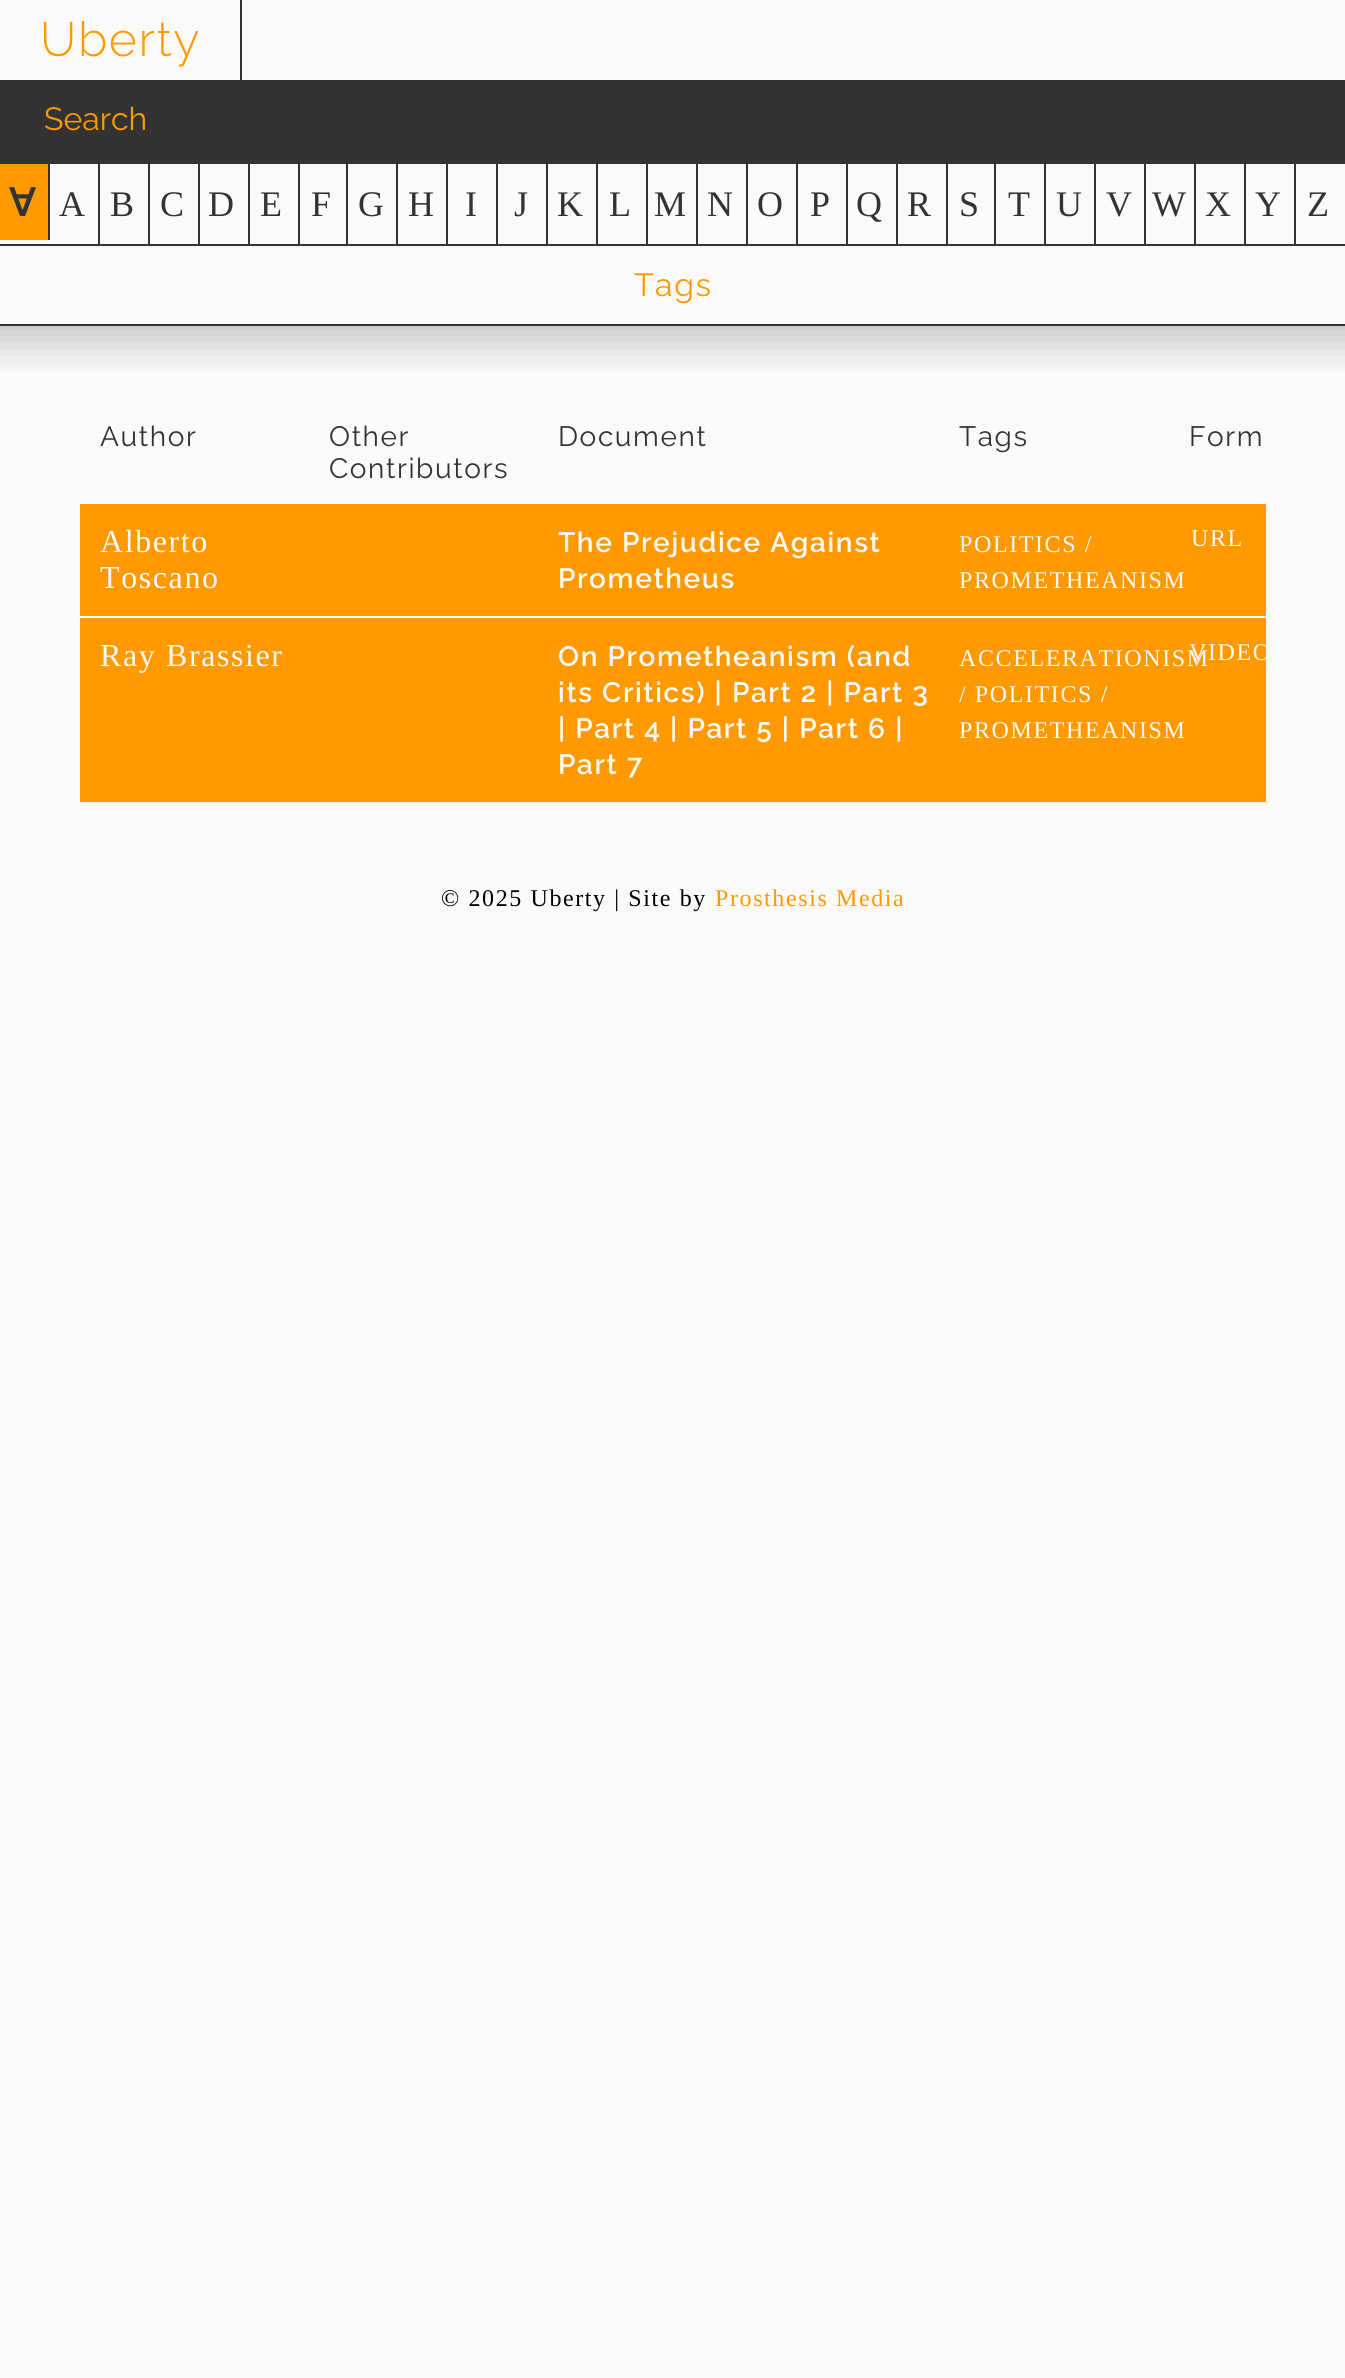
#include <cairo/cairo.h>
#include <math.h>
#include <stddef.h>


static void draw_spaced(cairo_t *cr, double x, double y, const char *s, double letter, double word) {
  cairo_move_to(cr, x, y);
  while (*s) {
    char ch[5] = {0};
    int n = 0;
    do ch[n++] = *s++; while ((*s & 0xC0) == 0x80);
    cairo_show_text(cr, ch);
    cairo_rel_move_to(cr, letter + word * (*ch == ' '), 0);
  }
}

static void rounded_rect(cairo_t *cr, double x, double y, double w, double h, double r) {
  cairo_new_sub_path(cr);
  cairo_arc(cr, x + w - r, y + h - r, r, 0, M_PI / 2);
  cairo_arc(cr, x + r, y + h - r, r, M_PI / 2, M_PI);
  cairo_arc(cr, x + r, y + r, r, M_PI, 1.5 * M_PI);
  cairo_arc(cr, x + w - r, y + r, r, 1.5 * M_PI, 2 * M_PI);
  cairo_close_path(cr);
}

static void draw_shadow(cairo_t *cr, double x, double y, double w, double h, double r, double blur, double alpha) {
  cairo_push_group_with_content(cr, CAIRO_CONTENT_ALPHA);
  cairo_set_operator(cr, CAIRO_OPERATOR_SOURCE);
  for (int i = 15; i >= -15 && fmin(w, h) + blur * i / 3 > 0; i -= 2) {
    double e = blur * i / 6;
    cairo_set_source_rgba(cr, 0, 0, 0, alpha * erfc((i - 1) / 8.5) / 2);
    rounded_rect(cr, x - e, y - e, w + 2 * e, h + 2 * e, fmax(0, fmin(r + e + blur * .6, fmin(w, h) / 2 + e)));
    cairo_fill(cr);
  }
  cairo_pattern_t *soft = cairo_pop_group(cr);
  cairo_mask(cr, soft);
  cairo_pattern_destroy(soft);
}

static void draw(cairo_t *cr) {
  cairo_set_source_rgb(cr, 251 / 255.0, 250 / 255.0, 248 / 255.0);
  cairo_paint(cr);
  cairo_save(cr);
  cairo_rectangle(cr, 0, 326, 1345, 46);
  cairo_clip(cr);
  cairo_set_source_rgb(cr, 0, 0, 0);
  draw_shadow(cr, -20, -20, 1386, 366, 0, 20, 0.2);
  cairo_restore(cr);
  cairo_set_source_rgb(cr, 51 / 255.0, 51 / 255.0, 51 / 255.0);
  cairo_rectangle(cr, 0, 324, 1345, 2);
  cairo_fill(cr);
  cairo_rectangle(cr, 0, 80, 1345, 84);
  cairo_fill(cr);
  cairo_rectangle(cr, 240, 0, 2, 80);
  cairo_fill(cr);
  cairo_rectangle(cr, 0, 244, 1345, 2);
  cairo_fill(cr);
  cairo_set_source_rgb(cr, 1, 153 / 255.0, 0);
  cairo_rectangle(cr, 0, 164, 48, 76);
  cairo_fill(cr);
  cairo_set_source_rgb(cr, 51 / 255.0, 51 / 255.0, 51 / 255.0);
  cairo_rectangle(cr, 48, 164, 2, 76);
  cairo_fill(cr);
  cairo_rectangle(cr, 98, 164, 2, 80);
  cairo_fill(cr);
  cairo_rectangle(cr, 148, 164, 2, 80);
  cairo_fill(cr);
  cairo_rectangle(cr, 198, 164, 2, 80);
  cairo_fill(cr);
  cairo_rectangle(cr, 248, 164, 2, 80);
  cairo_fill(cr);
  cairo_rectangle(cr, 298, 164, 2, 80);
  cairo_fill(cr);
  cairo_rectangle(cr, 346, 164, 2, 80);
  cairo_fill(cr);
  cairo_rectangle(cr, 396, 164, 2, 80);
  cairo_fill(cr);
  cairo_rectangle(cr, 446, 164, 2, 80);
  cairo_fill(cr);
  cairo_rectangle(cr, 496, 164, 2, 80);
  cairo_fill(cr);
  cairo_rectangle(cr, 546, 164, 2, 80);
  cairo_fill(cr);
  cairo_rectangle(cr, 596, 164, 2, 80);
  cairo_fill(cr);
  cairo_rectangle(cr, 646, 164, 2, 80);
  cairo_fill(cr);
  cairo_rectangle(cr, 696, 164, 2, 80);
  cairo_fill(cr);
  cairo_rectangle(cr, 746, 164, 2, 80);
  cairo_fill(cr);
  cairo_rectangle(cr, 796, 164, 2, 80);
  cairo_fill(cr);
  cairo_rectangle(cr, 846, 164, 2, 80);
  cairo_fill(cr);
  cairo_rectangle(cr, 896, 164, 2, 80);
  cairo_fill(cr);
  cairo_rectangle(cr, 946, 164, 2, 80);
  cairo_fill(cr);
  cairo_rectangle(cr, 994, 164, 2, 80);
  cairo_fill(cr);
  cairo_rectangle(cr, 1044, 164, 2, 80);
  cairo_fill(cr);
  cairo_rectangle(cr, 1094, 164, 2, 80);
  cairo_fill(cr);
  cairo_rectangle(cr, 1144, 164, 2, 80);
  cairo_fill(cr);
  cairo_rectangle(cr, 1194, 164, 2, 80);
  cairo_fill(cr);
  cairo_rectangle(cr, 1244, 164, 2, 80);
  cairo_fill(cr);
  cairo_rectangle(cr, 1294, 164, 2, 80);
  cairo_fill(cr);
  cairo_set_source_rgb(cr, 1, 153 / 255.0, 0);
  cairo_rectangle(cr, 80, 504, 1186, 112);
  cairo_fill(cr);
  cairo_rectangle(cr, 80, 618, 1186, 184);
  cairo_fill(cr);
  cairo_select_font_face(cr, "Raleway Light", CAIRO_FONT_SLANT_NORMAL, CAIRO_FONT_WEIGHT_NORMAL);
  cairo_set_font_size(cr, 48);
  draw_spaced(cr, 40, 56, "Uberty", 1.6, 0);
  cairo_select_font_face(cr, "Raleway", CAIRO_FONT_SLANT_NORMAL, CAIRO_FONT_WEIGHT_NORMAL);
  cairo_set_font_size(cr, 32);
  cairo_move_to(cr, 44, 130);
  cairo_show_text(cr, "Search");
  cairo_select_font_face(cr, "DejaVu Sans", CAIRO_FONT_SLANT_NORMAL, CAIRO_FONT_WEIGHT_BOLD);
  cairo_set_font_size(cr, 38);
  cairo_set_source_rgb(cr, 51 / 255.0, 51 / 255.0, 51 / 255.0);
  draw_spaced(cr, 9, 216, "∀", 1.6, 0);
  cairo_select_font_face(cr, "Liberation Serif", CAIRO_FONT_SLANT_NORMAL, CAIRO_FONT_WEIGHT_NORMAL);
  cairo_set_font_size(cr, 36);
  draw_spaced(cr, 59, 216, "A", 1.6, 0);
  draw_spaced(cr, 110, 216, "B", 1.6, 0);
  draw_spaced(cr, 160, 216, "C", 1.6, 0);
  draw_spaced(cr, 208, 216, "D", 1.6, 0);
  draw_spaced(cr, 260, 216, "E", 1.6, 0);
  draw_spaced(cr, 311, 216, "F", 1.6, 0);
  draw_spaced(cr, 358, 216, "G", 1.6, 0);
  draw_spaced(cr, 408, 216, "H", 1.6, 0);
  draw_spaced(cr, 465, 216, "I", 1.6, 0);
  draw_spaced(cr, 514, 216, "J", 1.6, 0);
  draw_spaced(cr, 557, 216, "K", 1.6, 0);
  draw_spaced(cr, 609, 216, "L", 1.6, 0);
  draw_spaced(cr, 654, 216, "M", 1.6, 0);
  draw_spaced(cr, 707, 216, "N", 1.6, 0);
  draw_spaced(cr, 757, 216, "O", 1.6, 0);
  draw_spaced(cr, 810, 216, "P", 1.6, 0);
  draw_spaced(cr, 856, 216, "Q", 1.6, 0);
  draw_spaced(cr, 907, 216, "R", 1.6, 0);
  draw_spaced(cr, 959, 216, "S", 1.6, 0);
  draw_spaced(cr, 1008, 216, "T", 1.6, 0);
  draw_spaced(cr, 1056, 216, "U", 1.6, 0);
  draw_spaced(cr, 1106, 216, "V", 1.6, 0);
  draw_spaced(cr, 1152, 216, "W", 1.6, 0);
  draw_spaced(cr, 1205, 216, "X", 1.6, 0);
  draw_spaced(cr, 1255, 216, "Y", 1.6, 0);
  draw_spaced(cr, 1307, 216, "Z", 1.6, 0);
  cairo_select_font_face(cr, "Raleway", CAIRO_FONT_SLANT_NORMAL, CAIRO_FONT_WEIGHT_NORMAL);
  cairo_set_font_size(cr, 32);
  cairo_set_source_rgb(cr, 1, 153 / 255.0, 0);
  draw_spaced(cr, 634, 296, "Tags", 1.6, 0);
  cairo_set_font_size(cr, 28);
  cairo_set_source_rgb(cr, 51 / 255.0, 51 / 255.0, 51 / 255.0);
  draw_spaced(cr, 100, 446, "Author", 1.6, 0);
  draw_spaced(cr, 329, 446, "Other", 1.6, 0);
  draw_spaced(cr, 329, 478, "Contributors", 1.6, 0);
  draw_spaced(cr, 558, 446, "Document", 1.6, 0);
  draw_spaced(cr, 959, 446, "Tags", 1.6, 0);
  draw_spaced(cr, 1189, 446, "Form", 1.6, 0);
  cairo_select_font_face(cr, "Liberation Serif", CAIRO_FONT_SLANT_NORMAL, CAIRO_FONT_WEIGHT_NORMAL);
  cairo_set_font_size(cr, 32);
  cairo_set_source_rgb(cr, 251 / 255.0, 250 / 255.0, 248 / 255.0);
  draw_spaced(cr, 100, 552, "Alberto", 1.6, 0);
  draw_spaced(cr, 100, 588, "Toscano", 1.6, 0);
  cairo_select_font_face(cr, "Raleway SemiBold", CAIRO_FONT_SLANT_NORMAL, CAIRO_FONT_WEIGHT_NORMAL);
  cairo_set_font_size(cr, 28);
  draw_spaced(cr, 558, 552, "The Prejudice Against", 1.6, 0);
  draw_spaced(cr, 558, 588, "Prometheus", 1.6, 0);
  cairo_select_font_face(cr, "Liberation Serif", CAIRO_FONT_SLANT_NORMAL, CAIRO_FONT_WEIGHT_NORMAL);
  cairo_set_font_size(cr, 24);
  draw_spaced(cr, 959, 552, "POLITICS /", 1.6, 0);
  draw_spaced(cr, 959, 588, "PROMETHEANISM", 1.6, 0);
  draw_spaced(cr, 1191, 546, "URL", 1.6, 0);
  cairo_set_font_size(cr, 32);
  draw_spaced(cr, 100, 666, "Ray Brassier", 1.6, 0);
  cairo_select_font_face(cr, "Raleway SemiBold", CAIRO_FONT_SLANT_NORMAL, CAIRO_FONT_WEIGHT_NORMAL);
  cairo_set_font_size(cr, 28);
  draw_spaced(cr, 558, 666, "On Prometheanism (and", 1.6, 0);
  draw_spaced(cr, 558, 702, "its Critics) | Part 2 | Part 3", 1.6, 0);
  draw_spaced(cr, 558, 738, "| Part 4 | Part 5 | Part 6 |", 1.6, 0);
  draw_spaced(cr, 558, 774, "Part 7", 1.6, 0);
  cairo_select_font_face(cr, "Liberation Serif", CAIRO_FONT_SLANT_NORMAL, CAIRO_FONT_WEIGHT_NORMAL);
  cairo_set_font_size(cr, 24);
  draw_spaced(cr, 959, 666, "ACCELERATIONISM", 1.6, 0);
  draw_spaced(cr, 959, 702, "/ POLITICS /", 1.6, 0);
  draw_spaced(cr, 959, 738, "PROMETHEANISM", 1.6, 0);
  cairo_save(cr);
  cairo_rectangle(cr, 80, 618, 1186, 184);
  cairo_clip(cr);
  draw_spaced(cr, 1189, 660, "VIDEO", 1.6, 0);
  cairo_restore(cr);
  cairo_set_source_rgb(cr, 0, 0, 0);
  draw_spaced(cr, 441, 906, "© 2025 Uberty | Site by", 1.6, 0);
  cairo_set_source_rgb(cr, 1, 153 / 255.0, 0);
  draw_spaced(cr, 715, 906, "Prosthesis Media", 1.6, 0);
}

int main(void) {
  cairo_surface_t *surface = cairo_image_surface_create(CAIRO_FORMAT_RGB24, 1345, 2378);
  cairo_t *cr = cairo_create(surface);
  cairo_font_options_t *options = cairo_font_options_create();
  cairo_font_options_set_hint_metrics(options, CAIRO_HINT_METRICS_OFF);
  cairo_font_options_set_hint_style(options, CAIRO_HINT_STYLE_NONE);
  cairo_set_font_options(cr, options);
  cairo_set_miter_limit(cr, 4);
  draw(cr);
  cairo_surface_write_to_png(surface, "out.png");
  cairo_font_options_destroy(options);
  cairo_destroy(cr);
  cairo_surface_destroy(surface);
  return 0;
}
